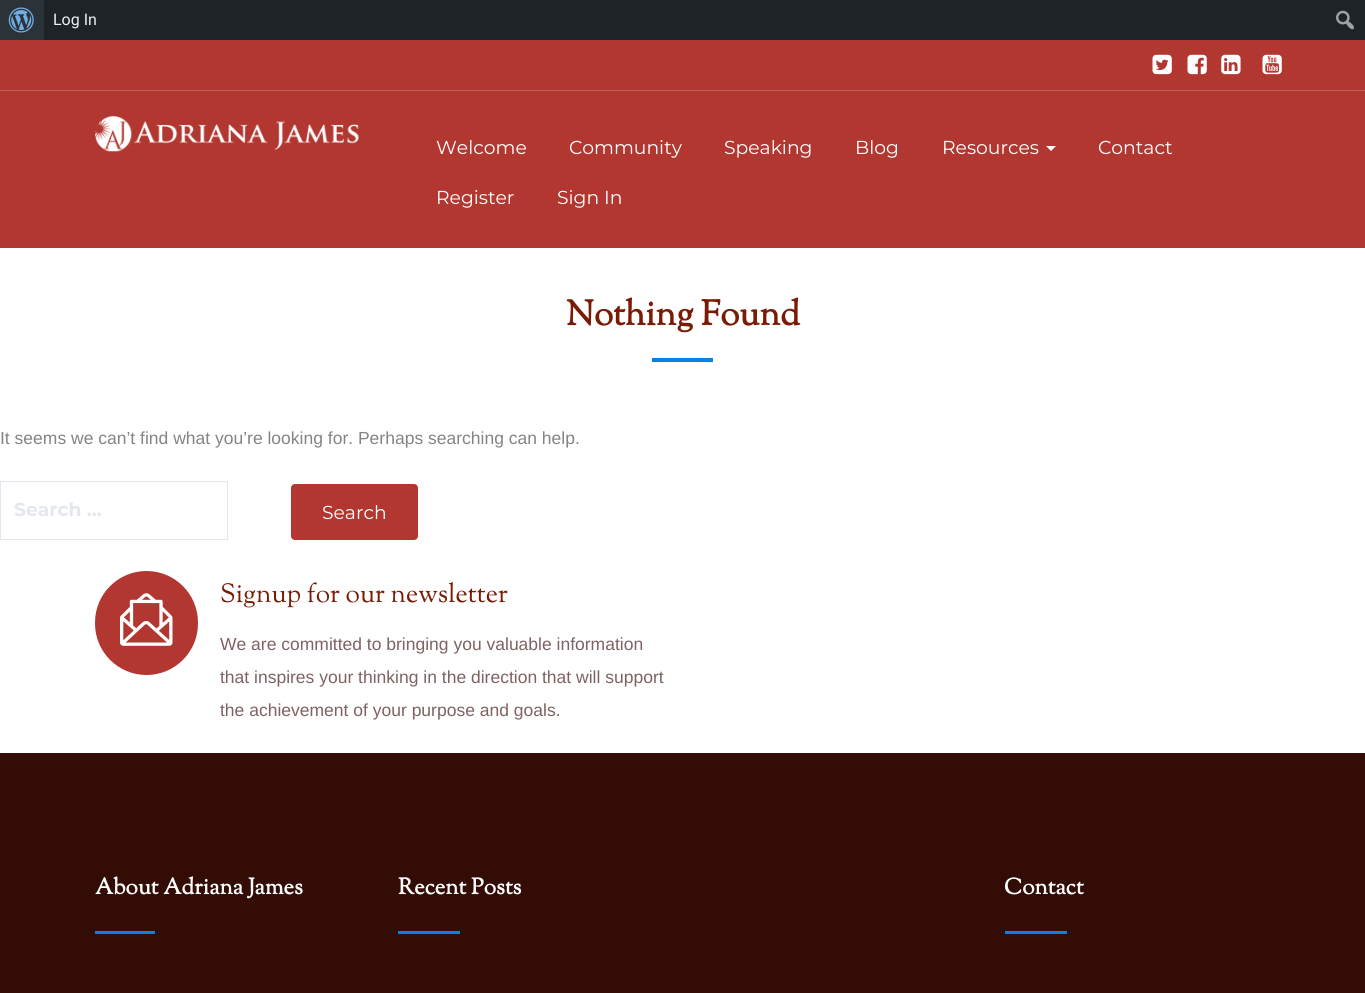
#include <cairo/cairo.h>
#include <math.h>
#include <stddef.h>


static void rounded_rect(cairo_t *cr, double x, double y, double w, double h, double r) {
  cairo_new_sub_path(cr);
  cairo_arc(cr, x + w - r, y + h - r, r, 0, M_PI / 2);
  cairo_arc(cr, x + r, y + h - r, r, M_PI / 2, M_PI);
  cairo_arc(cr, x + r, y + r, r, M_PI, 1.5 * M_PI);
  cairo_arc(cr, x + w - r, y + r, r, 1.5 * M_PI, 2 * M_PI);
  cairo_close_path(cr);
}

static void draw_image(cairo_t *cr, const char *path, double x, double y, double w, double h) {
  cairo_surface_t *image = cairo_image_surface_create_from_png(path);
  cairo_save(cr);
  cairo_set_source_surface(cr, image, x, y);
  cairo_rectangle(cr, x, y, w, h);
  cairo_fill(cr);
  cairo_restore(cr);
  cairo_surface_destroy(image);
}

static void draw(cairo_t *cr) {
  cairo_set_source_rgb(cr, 1, 1, 1);
  cairo_paint(cr);
  cairo_set_source_rgb(cr, 29 / 255.0, 35 / 255.0, 39 / 255.0);
  cairo_rectangle(cr, 44, 0, 1321, 40);
  cairo_fill(cr);
  cairo_set_source_rgb(cr, 44 / 255.0, 51 / 255.0, 56 / 255.0);
  cairo_rectangle(cr, 0, 0, 44, 40);
  cairo_fill(cr);
  draw_image(cr, "images/1.png", 8, 7, 26, 26);
  draw_image(cr, "images/2.png", 1336, 10, 18, 20);
  cairo_set_source_rgb(cr, 179 / 255.0, 55 / 255.0, 49 / 255.0);
  cairo_rectangle(cr, 0, 40, 1365, 208);
  cairo_fill(cr);
  cairo_set_source_rgb(cr, 178 / 255.0, 97 / 255.0, 92 / 255.0);
  cairo_rectangle(cr, 0, 90, 1365, 1);
  cairo_fill(cr);
  draw_image(cr, "images/3.png", 1152, 54, 20, 21);
  draw_image(cr, "images/4.png", 1187, 54, 20, 21);
  draw_image(cr, "images/5.png", 1221, 54, 20, 21);
  draw_image(cr, "images/6.png", 1262, 54, 20, 21);
  draw_image(cr, "images/7.png", 95, 116, 265, 36);
  cairo_set_source_rgb(cr, 1, 1, 1);
  cairo_new_path(cr);
  cairo_move_to(cr, 1046, 146);
  cairo_line_to(cr, 1056, 146);
  cairo_line_to(cr, 1051, 151);
  cairo_close_path(cr);
  cairo_fill(cr);
  cairo_set_source_rgb(cr, 5 / 255.0, 131 / 255.0, 228 / 255.0);
  cairo_rectangle(cr, 652, 358, 61, 4);
  cairo_fill(cr);
  cairo_rectangle(cr, 0.5, 481.5, 227, 58);
  cairo_set_source_rgb(cr, 228 / 255.0, 232 / 255.0, 238 / 255.0);
  cairo_set_line_width(cr, 1);
  cairo_stroke(cr);
  cairo_set_source_rgb(cr, 179 / 255.0, 55 / 255.0, 49 / 255.0);
  rounded_rect(cr, 291, 484, 127, 56, 4);
  cairo_fill(cr);
  rounded_rect(cr, 95, 571, 103, 104, 51.5);
  cairo_fill(cr);
  draw_image(cr, "images/8.png", 120, 593, 53, 53);
  cairo_set_source_rgb(cr, 51 / 255.0, 12 / 255.0, 5 / 255.0);
  cairo_rectangle(cr, 0, 753, 1365, 240);
  cairo_fill(cr);
  cairo_set_source_rgb(cr, 5 / 255.0, 131 / 255.0, 228 / 255.0);
  cairo_rectangle(cr, 95, 931, 60, 3);
  cairo_fill(cr);
  cairo_rectangle(cr, 398, 931, 62, 3);
  cairo_fill(cr);
  cairo_rectangle(cr, 1005, 931, 62, 3);
  cairo_fill(cr);
  cairo_select_font_face(cr, "Roboto", CAIRO_FONT_SLANT_NORMAL, CAIRO_FONT_WEIGHT_NORMAL);
  cairo_set_font_size(cr, 16);
  cairo_set_source_rgb(cr, 240 / 255.0, 240 / 255.0, 241 / 255.0);
  cairo_move_to(cr, 53, 25);
  cairo_show_text(cr, "Log In");
  cairo_select_font_face(cr, "Montserrat", CAIRO_FONT_SLANT_NORMAL, CAIRO_FONT_WEIGHT_NORMAL);
  cairo_set_font_size(cr, 18.75);
  cairo_set_source_rgb(cr, 1, 1, 1);
  cairo_move_to(cr, 436, 154);
  cairo_show_text(cr, "Welcome");
  cairo_move_to(cr, 569, 154);
  cairo_show_text(cr, "Community");
  cairo_move_to(cr, 724, 154);
  cairo_show_text(cr, "Speaking");
  cairo_move_to(cr, 855, 154);
  cairo_show_text(cr, "Blog");
  cairo_move_to(cr, 942, 154);
  cairo_show_text(cr, "Resources");
  cairo_move_to(cr, 1098, 154);
  cairo_show_text(cr, "Contact");
  cairo_move_to(cr, 436, 204);
  cairo_show_text(cr, "Register");
  cairo_move_to(cr, 557, 204);
  cairo_show_text(cr, "Sign In");
  cairo_select_font_face(cr, "Sorts Mill Goudy", CAIRO_FONT_SLANT_NORMAL, CAIRO_FONT_WEIGHT_BOLD);
  cairo_set_font_size(cr, 35);
  cairo_set_source_rgb(cr, 122 / 255.0, 27 / 255.0, 5 / 255.0);
  cairo_move_to(cr, 566, 325);
  cairo_show_text(cr, "Nothing Found");
  cairo_select_font_face(cr, "Liberation Sans", CAIRO_FONT_SLANT_NORMAL, CAIRO_FONT_WEIGHT_NORMAL);
  cairo_set_font_size(cr, 17.5);
  cairo_set_source_rgb(cr, 132 / 255.0, 132 / 255.0, 132 / 255.0);
  cairo_move_to(cr, 0, 444);
  cairo_show_text(cr, "It seems we can’t find what you’re looking for. Perhaps searching can help.");
  cairo_select_font_face(cr, "Montserrat", CAIRO_FONT_SLANT_NORMAL, CAIRO_FONT_WEIGHT_BOLD);
  cairo_set_font_size(cr, 18.75);
  cairo_set_source_rgb(cr, 228 / 255.0, 232 / 255.0, 238 / 255.0);
  cairo_move_to(cr, 14, 516);
  cairo_show_text(cr, "Search …");
  cairo_select_font_face(cr, "Montserrat", CAIRO_FONT_SLANT_NORMAL, CAIRO_FONT_WEIGHT_NORMAL);
  cairo_set_source_rgb(cr, 1, 1, 1);
  cairo_move_to(cr, 322, 519);
  cairo_show_text(cr, "Search");
  cairo_select_font_face(cr, "Sorts Mill Goudy", CAIRO_FONT_SLANT_NORMAL, CAIRO_FONT_WEIGHT_NORMAL);
  cairo_set_font_size(cr, 26.25);
  cairo_set_source_rgb(cr, 122 / 255.0, 27 / 255.0, 5 / 255.0);
  cairo_move_to(cr, 220, 602);
  cairo_show_text(cr, "Signup for our newsletter");
  cairo_select_font_face(cr, "Liberation Sans", CAIRO_FONT_SLANT_NORMAL, CAIRO_FONT_WEIGHT_NORMAL);
  cairo_set_font_size(cr, 17.5);
  cairo_set_source_rgb(cr, 127 / 255.0, 98 / 255.0, 98 / 255.0);
  cairo_move_to(cr, 220, 650);
  cairo_show_text(cr, "We are committed to bringing you valuable information");
  cairo_move_to(cr, 220, 683);
  cairo_show_text(cr, "that inspires your thinking in the direction that will support");
  cairo_move_to(cr, 220, 716);
  cairo_show_text(cr, "the achievement of your purpose and goals.");
  cairo_select_font_face(cr, "Sorts Mill Goudy", CAIRO_FONT_SLANT_NORMAL, CAIRO_FONT_WEIGHT_BOLD);
  cairo_set_font_size(cr, 22.5);
  cairo_set_source_rgb(cr, 1, 1, 1);
  cairo_move_to(cr, 95, 894);
  cairo_show_text(cr, "About Adriana James");
  cairo_move_to(cr, 398, 894);
  cairo_show_text(cr, "Recent Posts");
  cairo_move_to(cr, 1004, 894);
  cairo_show_text(cr, "Contact");
}

int main(void) {
  cairo_surface_t *surface = cairo_image_surface_create(CAIRO_FORMAT_RGB24, 1365, 993);
  cairo_t *cr = cairo_create(surface);
  cairo_font_options_t *options = cairo_font_options_create();
  cairo_font_options_set_hint_metrics(options, CAIRO_HINT_METRICS_OFF);
  cairo_font_options_set_hint_style(options, CAIRO_HINT_STYLE_NONE);
  cairo_set_font_options(cr, options);
  cairo_set_miter_limit(cr, 4);
  draw(cr);
  cairo_surface_write_to_png(surface, "out.png");
  cairo_font_options_destroy(options);
  cairo_destroy(cr);
  cairo_surface_destroy(surface);
  return 0;
}
